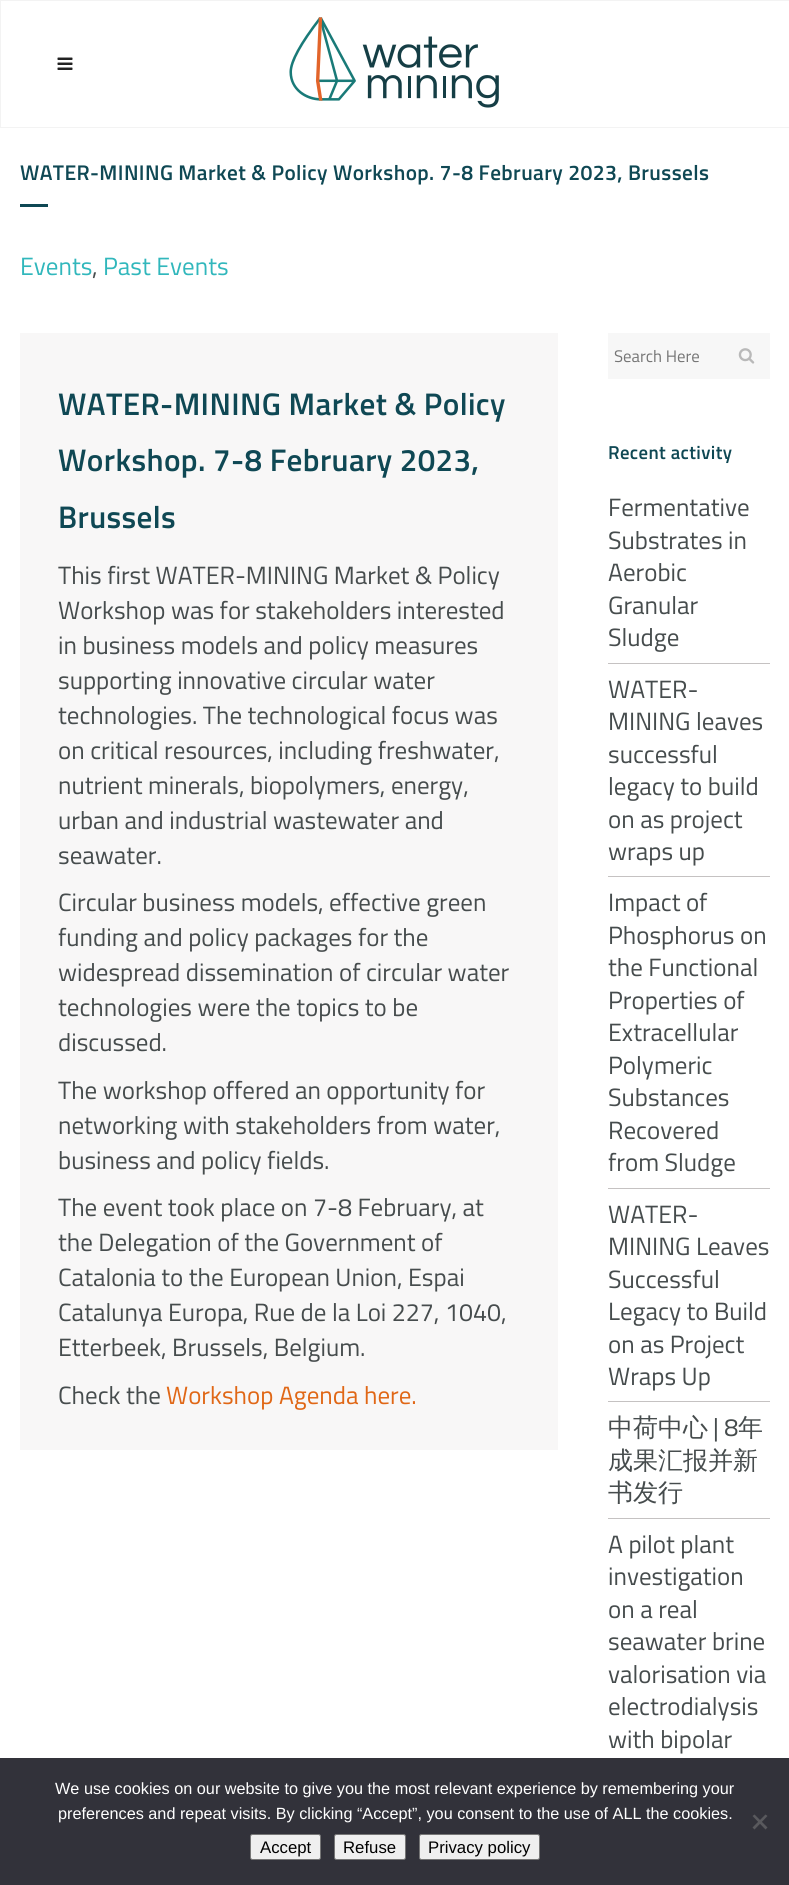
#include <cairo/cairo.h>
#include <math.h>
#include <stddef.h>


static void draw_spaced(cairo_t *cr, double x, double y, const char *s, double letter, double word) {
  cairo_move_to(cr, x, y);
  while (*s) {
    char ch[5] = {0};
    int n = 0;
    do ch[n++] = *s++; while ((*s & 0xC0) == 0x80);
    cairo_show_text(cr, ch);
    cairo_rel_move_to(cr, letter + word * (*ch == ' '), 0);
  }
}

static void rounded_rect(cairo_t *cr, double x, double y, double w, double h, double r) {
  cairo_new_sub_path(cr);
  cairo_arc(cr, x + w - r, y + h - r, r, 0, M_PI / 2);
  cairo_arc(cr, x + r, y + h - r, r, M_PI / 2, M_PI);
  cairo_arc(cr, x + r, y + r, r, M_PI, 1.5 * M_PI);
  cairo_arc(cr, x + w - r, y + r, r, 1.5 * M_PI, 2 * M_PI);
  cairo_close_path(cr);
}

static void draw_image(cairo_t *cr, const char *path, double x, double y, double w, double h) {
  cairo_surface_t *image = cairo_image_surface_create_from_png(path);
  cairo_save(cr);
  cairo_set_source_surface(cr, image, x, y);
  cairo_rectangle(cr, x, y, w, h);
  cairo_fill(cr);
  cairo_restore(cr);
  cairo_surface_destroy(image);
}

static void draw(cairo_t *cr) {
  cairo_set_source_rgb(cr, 1, 1, 1);
  cairo_paint(cr);
  cairo_rectangle(cr, 0.5, 0.5, 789, 127);
  cairo_set_source_rgb(cr, 243 / 255.0, 243 / 255.0, 243 / 255.0);
  cairo_set_line_width(cr, 1);
  cairo_stroke(cr);
  draw_image(cr, "images/1.png", 57, 57, 16, 13);
  draw_image(cr, "images/2.png", 289, 17, 210, 91);
  cairo_set_source_rgb(cr, 15 / 255.0, 72 / 255.0, 84 / 255.0);
  cairo_rectangle(cr, 20, 204, 28, 3);
  cairo_fill(cr);
  cairo_set_source_rgb(cr, 248 / 255.0, 247 / 255.0, 247 / 255.0);
  cairo_rectangle(cr, 20, 333, 538, 1117);
  cairo_fill(cr);
  cairo_set_source_rgb(cr, 247 / 255.0, 247 / 255.0, 247 / 255.0);
  cairo_rectangle(cr, 608, 333, 162, 46);
  cairo_fill(cr);
  draw_image(cr, "images/3.png", 738, 348, 17, 16);
  cairo_set_source_rgb(cr, 197 / 255.0, 194 / 255.0, 194 / 255.0);
  cairo_rectangle(cr, 608, 663, 162, 1);
  cairo_fill(cr);
  cairo_rectangle(cr, 608, 876, 162, 1);
  cairo_fill(cr);
  cairo_rectangle(cr, 608, 1188, 162, 1);
  cairo_fill(cr);
  cairo_rectangle(cr, 608, 1401, 162, 1);
  cairo_fill(cr);
  cairo_rectangle(cr, 608, 1518, 162, 1);
  cairo_fill(cr);
  cairo_set_source_rgb(cr, 50 / 255.0, 50 / 255.0, 58 / 255.0);
  cairo_rectangle(cr, 0, 1758, 789, 127);
  cairo_fill(cr);
  cairo_set_source_rgb(cr, 89 / 255.0, 89 / 255.0, 93 / 255.0);
  cairo_new_path(cr);
  cairo_move_to(cr, 765.5, 1814.5);
  cairo_line_to(cr, 767.5, 1816);
  cairo_line_to(cr, 754.5, 1829.5);
  cairo_line_to(cr, 752.5, 1827.5);
  cairo_close_path(cr);
  cairo_fill(cr);
  cairo_new_path(cr);
  cairo_move_to(cr, 752.5, 1816);
  cairo_line_to(cr, 754.5, 1814.5);
  cairo_line_to(cr, 767.5, 1827.5);
  cairo_line_to(cr, 765.5, 1829.5);
  cairo_close_path(cr);
  cairo_fill(cr);
  cairo_set_source_rgb(cr, 239 / 255.0, 239 / 255.0, 239 / 255.0);
  rounded_rect(cr, 250.5, 1834.5, 70, 25, 2);
  cairo_fill_preserve(cr);
  cairo_set_source_rgb(cr, 118 / 255.0, 118 / 255.0, 118 / 255.0);
  cairo_stroke(cr);
  cairo_set_source_rgb(cr, 239 / 255.0, 239 / 255.0, 239 / 255.0);
  rounded_rect(cr, 334.5, 1834.5, 71, 25, 2);
  cairo_fill_preserve(cr);
  cairo_set_source_rgb(cr, 118 / 255.0, 118 / 255.0, 118 / 255.0);
  cairo_stroke(cr);
  cairo_set_source_rgb(cr, 239 / 255.0, 239 / 255.0, 239 / 255.0);
  rounded_rect(cr, 419.5, 1834.5, 120, 25, 2);
  cairo_fill_preserve(cr);
  cairo_set_source_rgb(cr, 118 / 255.0, 118 / 255.0, 118 / 255.0);
  cairo_stroke(cr);
  cairo_select_font_face(cr, "Titillium Web SemiBold", CAIRO_FONT_SLANT_NORMAL, CAIRO_FONT_WEIGHT_NORMAL);
  cairo_set_font_size(cr, 21.25);
  cairo_set_source_rgb(cr, 15 / 255.0, 72 / 255.0, 84 / 255.0);
  draw_spaced(cr, 20, 180, "WATER-MINING Market & Policy Workshop. 7-8 February 2023, Brussels", 0.38, 0);
  cairo_select_font_face(cr, "Titillium Web", CAIRO_FONT_SLANT_NORMAL, CAIRO_FONT_WEIGHT_NORMAL);
  cairo_set_font_size(cr, 25);
  cairo_set_source_rgb(cr, 49 / 255.0, 183 / 255.0, 188 / 255.0);
  cairo_move_to(cr, 20, 275);
  cairo_show_text(cr, "Events");
  cairo_set_source_rgb(cr, 70 / 255.0, 76 / 255.0, 77 / 255.0);
  cairo_move_to(cr, 92, 275);
  cairo_show_text(cr, ",");
  cairo_set_source_rgb(cr, 49 / 255.0, 183 / 255.0, 188 / 255.0);
  cairo_move_to(cr, 103, 275);
  cairo_show_text(cr, "Past Events");
  cairo_select_font_face(cr, "Titillium Web SemiBold", CAIRO_FONT_SLANT_NORMAL, CAIRO_FONT_WEIGHT_NORMAL);
  cairo_set_font_size(cr, 31.25);
  cairo_set_source_rgb(cr, 15 / 255.0, 72 / 255.0, 84 / 255.0);
  draw_spaced(cr, 58, 415, "WATER-MINING Market & Policy", 0.38, 0);
  draw_spaced(cr, 58, 471, "Workshop. 7-8 February 2023,", 0.38, 0);
  draw_spaced(cr, 58, 528, "Brussels", 0.38, 0);
  cairo_select_font_face(cr, "Titillium Web", CAIRO_FONT_SLANT_NORMAL, CAIRO_FONT_WEIGHT_NORMAL);
  cairo_set_font_size(cr, 25);
  cairo_set_source_rgb(cr, 70 / 255.0, 76 / 255.0, 77 / 255.0);
  cairo_move_to(cr, 58, 584);
  cairo_show_text(cr, "This first WATER-MINING Market & Policy");
  cairo_move_to(cr, 58, 619);
  cairo_show_text(cr, "Workshop was for stakeholders interested");
  cairo_move_to(cr, 58, 654);
  cairo_show_text(cr, "in business models and policy measures");
  cairo_move_to(cr, 58, 689);
  cairo_show_text(cr, "supporting innovative circular water");
  cairo_move_to(cr, 58, 724);
  cairo_show_text(cr, "technologies. The technological focus was");
  cairo_move_to(cr, 58, 759);
  cairo_show_text(cr, "on critical resources, including freshwater,");
  cairo_move_to(cr, 58, 794);
  cairo_show_text(cr, "nutrient minerals, biopolymers, energy,");
  cairo_move_to(cr, 58, 829);
  cairo_show_text(cr, "urban and industrial wastewater and");
  cairo_move_to(cr, 58, 864);
  cairo_show_text(cr, "seawater.");
  cairo_move_to(cr, 58, 911);
  cairo_show_text(cr, "Circular business models, effective green");
  cairo_move_to(cr, 58, 946);
  cairo_show_text(cr, "funding and policy packages for the");
  cairo_move_to(cr, 58, 981);
  cairo_show_text(cr, "widespread dissemination of circular water");
  cairo_move_to(cr, 58, 1016);
  cairo_show_text(cr, "technologies were the topics to be");
  cairo_move_to(cr, 58, 1051);
  cairo_show_text(cr, "discussed.");
  cairo_move_to(cr, 58, 1099);
  cairo_show_text(cr, "The workshop offered an opportunity for");
  cairo_move_to(cr, 58, 1134);
  cairo_show_text(cr, "networking with stakeholders from water,");
  cairo_move_to(cr, 58, 1169);
  cairo_show_text(cr, "business and policy fields.");
  cairo_move_to(cr, 58, 1216);
  cairo_show_text(cr, "The event took place on 7-8 February, at");
  cairo_move_to(cr, 58, 1251);
  cairo_show_text(cr, "the Delegation of the Government of");
  cairo_move_to(cr, 58, 1286);
  cairo_show_text(cr, "Catalonia to the European Union, Espai");
  cairo_move_to(cr, 58, 1321);
  cairo_show_text(cr, "Catalunya Europa, Rue de la Loi 227, 1040,");
  cairo_move_to(cr, 58, 1356);
  cairo_show_text(cr, "Etterbeek, Brussels, Belgium.");
  cairo_move_to(cr, 58, 1404);
  cairo_show_text(cr, "Check the");
  cairo_set_source_rgb(cr, 224 / 255.0, 103 / 255.0, 22 / 255.0);
  cairo_move_to(cr, 166, 1404);
  cairo_show_text(cr, "Workshop Agenda here.");
  cairo_set_font_size(cr, 16.75);
  cairo_set_source_rgb(cr, 117 / 255.0, 117 / 255.0, 117 / 255.0);
  cairo_move_to(cr, 614, 362);
  cairo_show_text(cr, "Search Here");
  cairo_select_font_face(cr, "Titillium Web SemiBold", CAIRO_FONT_SLANT_NORMAL, CAIRO_FONT_WEIGHT_NORMAL);
  cairo_set_font_size(cr, 18.75);
  cairo_set_source_rgb(cr, 15 / 255.0, 72 / 255.0, 84 / 255.0);
  draw_spaced(cr, 608, 459, "Recent activity", 0.38, 0);
  cairo_select_font_face(cr, "Titillium Web", CAIRO_FONT_SLANT_NORMAL, CAIRO_FONT_WEIGHT_NORMAL);
  cairo_set_font_size(cr, 25);
  cairo_set_source_rgb(cr, 70 / 255.0, 76 / 255.0, 77 / 255.0);
  cairo_move_to(cr, 608, 516);
  cairo_show_text(cr, "Fermentative");
  cairo_move_to(cr, 608, 549);
  cairo_show_text(cr, "Substrates in");
  cairo_move_to(cr, 608, 581);
  cairo_show_text(cr, "Aerobic");
  cairo_move_to(cr, 608, 614);
  cairo_show_text(cr, "Granular");
  cairo_move_to(cr, 608, 646);
  cairo_show_text(cr, "Sludge");
  cairo_move_to(cr, 608, 698);
  cairo_show_text(cr, "WATER-");
  cairo_move_to(cr, 608, 730);
  cairo_show_text(cr, "MINING leaves");
  cairo_move_to(cr, 608, 763);
  cairo_show_text(cr, "successful");
  cairo_move_to(cr, 608, 795);
  cairo_show_text(cr, "legacy to build");
  cairo_move_to(cr, 608, 828);
  cairo_show_text(cr, "on as project");
  cairo_move_to(cr, 608, 860);
  cairo_show_text(cr, "wraps up");
  cairo_move_to(cr, 608, 911);
  cairo_show_text(cr, "Impact of");
  cairo_move_to(cr, 608, 944);
  cairo_show_text(cr, "Phosphorus on");
  cairo_move_to(cr, 608, 976);
  cairo_show_text(cr, "the Functional");
  cairo_move_to(cr, 608, 1009);
  cairo_show_text(cr, "Properties of");
  cairo_move_to(cr, 608, 1041);
  cairo_show_text(cr, "Extracellular");
  cairo_move_to(cr, 608, 1074);
  cairo_show_text(cr, "Polymeric");
  cairo_move_to(cr, 608, 1106);
  cairo_show_text(cr, "Substances");
  cairo_move_to(cr, 608, 1139);
  cairo_show_text(cr, "Recovered");
  cairo_move_to(cr, 608, 1171);
  cairo_show_text(cr, "from Sludge");
  cairo_move_to(cr, 608, 1223);
  cairo_show_text(cr, "WATER-");
  cairo_move_to(cr, 608, 1255);
  cairo_show_text(cr, "MINING Leaves");
  cairo_move_to(cr, 608, 1288);
  cairo_show_text(cr, "Successful");
  cairo_move_to(cr, 608, 1320);
  cairo_show_text(cr, "Legacy to Build");
  cairo_move_to(cr, 608, 1353);
  cairo_show_text(cr, "on as Project");
  cairo_move_to(cr, 608, 1385);
  cairo_show_text(cr, "Wraps Up");
  cairo_select_font_face(cr, "WenQuanYi Zen Hei Medium", CAIRO_FONT_SLANT_NORMAL, CAIRO_FONT_WEIGHT_NORMAL);
  cairo_move_to(cr, 608, 1436);
  cairo_show_text(cr, "中荷中心");
  cairo_select_font_face(cr, "Titillium Web", CAIRO_FONT_SLANT_NORMAL, CAIRO_FONT_WEIGHT_NORMAL);
  cairo_move_to(cr, 713, 1436);
  cairo_show_text(cr, "| 8");
  cairo_select_font_face(cr, "WenQuanYi Zen Hei Medium", CAIRO_FONT_SLANT_NORMAL, CAIRO_FONT_WEIGHT_NORMAL);
  cairo_move_to(cr, 738, 1436);
  cairo_show_text(cr, "年");
  cairo_move_to(cr, 608, 1469);
  cairo_show_text(cr, "成果汇报并新");
  cairo_move_to(cr, 608, 1501);
  cairo_show_text(cr, "书发行");
  cairo_select_font_face(cr, "Titillium Web", CAIRO_FONT_SLANT_NORMAL, CAIRO_FONT_WEIGHT_NORMAL);
  cairo_move_to(cr, 608, 1553);
  cairo_show_text(cr, "A pilot plant");
  cairo_move_to(cr, 608, 1585);
  cairo_show_text(cr, "investigation");
  cairo_move_to(cr, 608, 1618);
  cairo_show_text(cr, "on a real");
  cairo_move_to(cr, 608, 1650);
  cairo_show_text(cr, "seawater brine");
  cairo_move_to(cr, 608, 1683);
  cairo_show_text(cr, "valorisation via");
  cairo_move_to(cr, 608, 1715);
  cairo_show_text(cr, "electrodialysis");
  cairo_move_to(cr, 608, 1748);
  cairo_show_text(cr, "with bipolar");
  cairo_select_font_face(cr, "Liberation Sans", CAIRO_FONT_SLANT_NORMAL, CAIRO_FONT_WEIGHT_NORMAL);
  cairo_set_font_size(cr, 16.25);
  cairo_set_source_rgb(cr, 1, 1, 1);
  cairo_move_to(cr, 55, 1794);
  cairo_show_text(cr, "We use cookies on our website to give you the most relevant experience by remembering your");
  cairo_move_to(cr, 58, 1819);
  cairo_show_text(cr, "preferences and repeat visits. By clicking “Accept”, you consent to the use of ALL the cookies.");
  cairo_set_font_size(cr, 16.75);
  cairo_set_source_rgb(cr, 0, 0, 0);
  cairo_move_to(cr, 260, 1853);
  cairo_show_text(cr, "Accept");
  cairo_move_to(cr, 343, 1853);
  cairo_show_text(cr, "Refuse");
  cairo_move_to(cr, 428, 1853);
  cairo_show_text(cr, "Privacy policy");
}

int main(void) {
  cairo_surface_t *surface = cairo_image_surface_create(CAIRO_FORMAT_RGB24, 789, 1885);
  cairo_t *cr = cairo_create(surface);
  cairo_font_options_t *options = cairo_font_options_create();
  cairo_font_options_set_hint_metrics(options, CAIRO_HINT_METRICS_OFF);
  cairo_font_options_set_hint_style(options, CAIRO_HINT_STYLE_NONE);
  cairo_set_font_options(cr, options);
  cairo_set_miter_limit(cr, 4);
  draw(cr);
  cairo_surface_write_to_png(surface, "out.png");
  cairo_font_options_destroy(options);
  cairo_destroy(cr);
  cairo_surface_destroy(surface);
  return 0;
}
